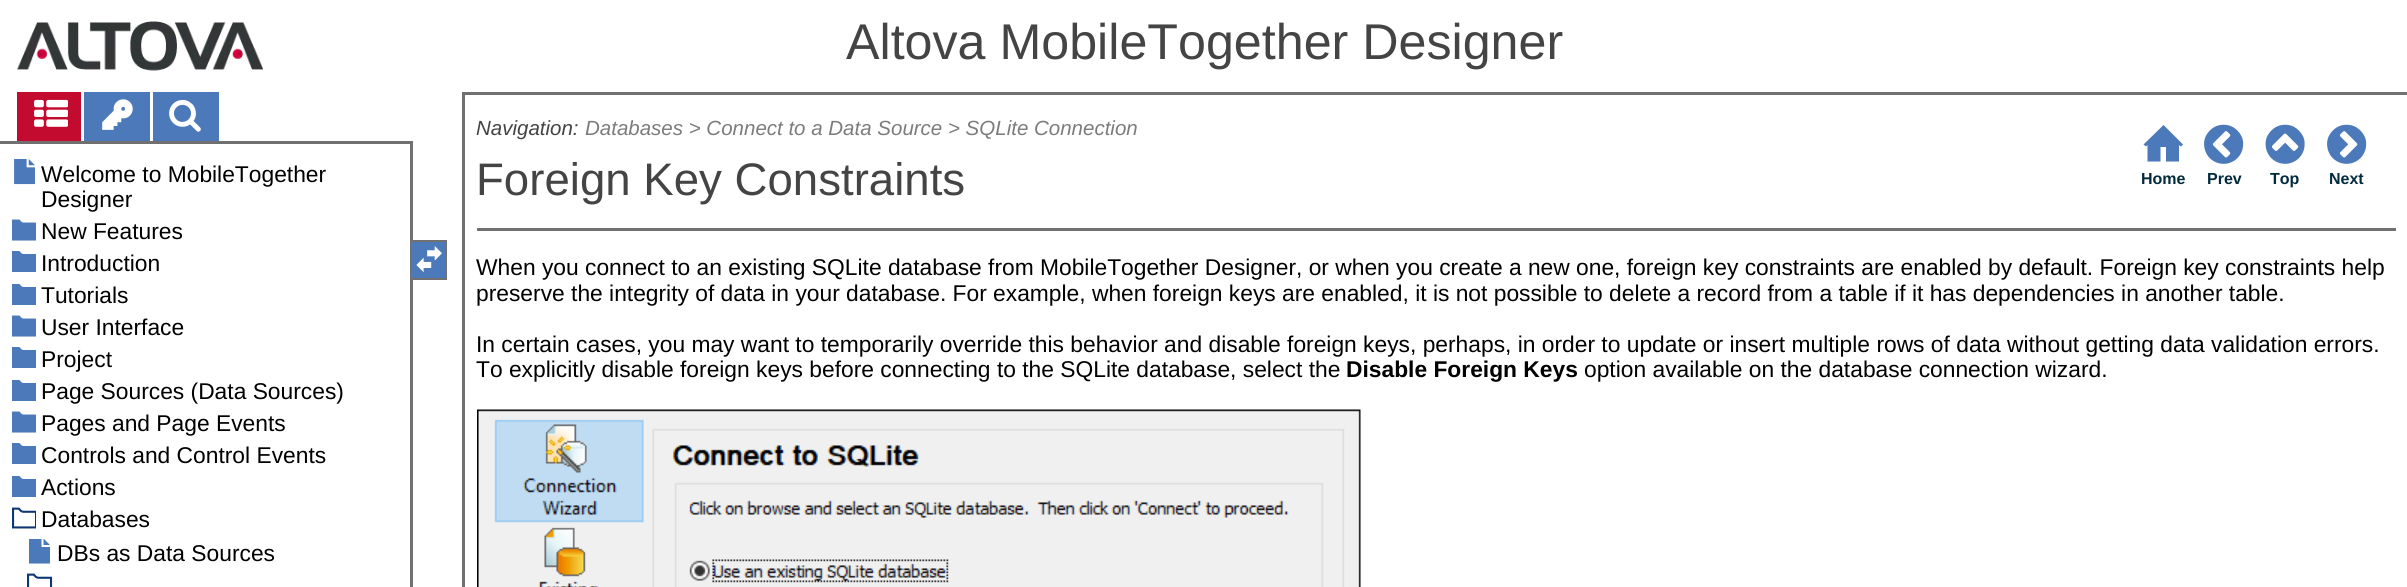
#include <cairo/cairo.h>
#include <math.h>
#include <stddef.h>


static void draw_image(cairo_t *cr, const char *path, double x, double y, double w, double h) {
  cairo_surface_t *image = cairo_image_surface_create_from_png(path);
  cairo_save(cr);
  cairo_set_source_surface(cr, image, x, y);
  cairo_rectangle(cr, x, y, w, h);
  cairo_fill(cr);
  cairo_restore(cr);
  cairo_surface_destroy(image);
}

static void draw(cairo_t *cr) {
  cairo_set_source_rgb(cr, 1, 1, 1);
  cairo_paint(cr);
  draw_image(cr, "images/1.png", 17, 21, 246, 50);
  cairo_set_source_rgb(cr, 194 / 255.0, 11 / 255.0, 47 / 255.0);
  cairo_rectangle(cr, 17, 92, 64, 49);
  cairo_fill(cr);
  cairo_set_source_rgb(cr, 76 / 255.0, 121 / 255.0, 185 / 255.0);
  cairo_rectangle(cr, 84, 92, 66, 49);
  cairo_fill(cr);
  cairo_rectangle(cr, 153, 92, 66, 49);
  cairo_fill(cr);
  draw_image(cr, "images/2.png", 34, 99, 34, 28);
  draw_image(cr, "images/3.png", 102, 99, 31, 31);
  draw_image(cr, "images/4.png", 169, 99, 32, 33);
  cairo_set_source_rgb(cr, 112 / 255.0, 112 / 255.0, 112 / 255.0);
  cairo_rectangle(cr, 0, 141, 413, 3);
  cairo_fill(cr);
  cairo_rectangle(cr, 410, 141, 3, 446);
  cairo_fill(cr);
  draw_image(cr, "images/5.png", 14, 159, 21, 26);
  cairo_save(cr);
  cairo_rectangle(cr, 12, 218, 24, 25);
  cairo_clip(cr);
  cairo_set_source_rgb(cr, 76 / 255.0, 121 / 255.0, 185 / 255.0);
  cairo_new_path(cr);
  cairo_move_to(cr, 23.5, 222.5);
  cairo_curve_to(cr, 22, 222.5, 21, 221.5, 19.5, 219.5);
  cairo_line_to(cr, 12, 219.5);
  cairo_line_to(cr, 12, 240.5);
  cairo_line_to(cr, 37, 240.5);
  cairo_line_to(cr, 37, 222.5);
  cairo_close_path(cr);
  cairo_fill(cr);
  cairo_restore(cr);
  cairo_save(cr);
  cairo_rectangle(cr, 12, 249, 24, 26);
  cairo_clip(cr);
  cairo_set_source_rgb(cr, 76 / 255.0, 121 / 255.0, 185 / 255.0);
  cairo_new_path(cr);
  cairo_move_to(cr, 23.5, 254);
  cairo_curve_to(cr, 22, 254, 21, 253, 19.5, 251);
  cairo_line_to(cr, 12, 251);
  cairo_line_to(cr, 12, 272);
  cairo_line_to(cr, 37, 272);
  cairo_line_to(cr, 37, 254);
  cairo_close_path(cr);
  cairo_fill(cr);
  cairo_restore(cr);
  cairo_save(cr);
  cairo_rectangle(cr, 12, 282, 24, 24);
  cairo_clip(cr);
  cairo_set_source_rgb(cr, 76 / 255.0, 121 / 255.0, 185 / 255.0);
  cairo_new_path(cr);
  cairo_move_to(cr, 23.5, 287);
  cairo_curve_to(cr, 22, 287, 21, 286, 19.5, 284);
  cairo_line_to(cr, 12, 284);
  cairo_line_to(cr, 12, 305);
  cairo_line_to(cr, 37, 305);
  cairo_line_to(cr, 37, 287);
  cairo_close_path(cr);
  cairo_fill(cr);
  cairo_restore(cr);
  cairo_save(cr);
  cairo_rectangle(cr, 12, 314, 24, 25);
  cairo_clip(cr);
  cairo_set_source_rgb(cr, 76 / 255.0, 121 / 255.0, 185 / 255.0);
  cairo_new_path(cr);
  cairo_move_to(cr, 23.5, 318.5);
  cairo_curve_to(cr, 22, 318.5, 21, 317.5, 19.5, 315.5);
  cairo_line_to(cr, 12, 315.5);
  cairo_line_to(cr, 12, 336.5);
  cairo_line_to(cr, 37, 336.5);
  cairo_line_to(cr, 37, 318.5);
  cairo_close_path(cr);
  cairo_fill(cr);
  cairo_restore(cr);
  cairo_save(cr);
  cairo_rectangle(cr, 12, 345, 24, 26);
  cairo_clip(cr);
  cairo_set_source_rgb(cr, 76 / 255.0, 121 / 255.0, 185 / 255.0);
  cairo_new_path(cr);
  cairo_move_to(cr, 23.5, 350);
  cairo_curve_to(cr, 22, 350, 21, 349, 19.5, 347);
  cairo_line_to(cr, 12, 347);
  cairo_line_to(cr, 12, 368);
  cairo_line_to(cr, 37, 368);
  cairo_line_to(cr, 37, 350);
  cairo_close_path(cr);
  cairo_fill(cr);
  cairo_restore(cr);
  cairo_save(cr);
  cairo_rectangle(cr, 12, 378, 24, 24);
  cairo_clip(cr);
  cairo_set_source_rgb(cr, 76 / 255.0, 121 / 255.0, 185 / 255.0);
  cairo_new_path(cr);
  cairo_move_to(cr, 23.5, 383);
  cairo_curve_to(cr, 22, 383, 21, 382, 19.5, 380);
  cairo_line_to(cr, 12, 380);
  cairo_line_to(cr, 12, 401);
  cairo_line_to(cr, 37, 401);
  cairo_line_to(cr, 37, 383);
  cairo_close_path(cr);
  cairo_fill(cr);
  cairo_restore(cr);
  cairo_save(cr);
  cairo_rectangle(cr, 12, 410, 24, 25);
  cairo_clip(cr);
  cairo_set_source_rgb(cr, 76 / 255.0, 121 / 255.0, 185 / 255.0);
  cairo_new_path(cr);
  cairo_move_to(cr, 23.5, 414.5);
  cairo_curve_to(cr, 22, 414.5, 21, 413.5, 19.5, 411.5);
  cairo_line_to(cr, 12, 411.5);
  cairo_line_to(cr, 12, 432.5);
  cairo_line_to(cr, 37, 432.5);
  cairo_line_to(cr, 37, 414.5);
  cairo_close_path(cr);
  cairo_fill(cr);
  cairo_restore(cr);
  cairo_save(cr);
  cairo_rectangle(cr, 12, 441, 24, 26);
  cairo_clip(cr);
  cairo_set_source_rgb(cr, 76 / 255.0, 121 / 255.0, 185 / 255.0);
  cairo_new_path(cr);
  cairo_move_to(cr, 23.5, 446);
  cairo_curve_to(cr, 22, 446, 21, 445, 19.5, 443);
  cairo_line_to(cr, 12, 443);
  cairo_line_to(cr, 12, 464);
  cairo_line_to(cr, 37, 464);
  cairo_line_to(cr, 37, 446);
  cairo_close_path(cr);
  cairo_fill(cr);
  cairo_restore(cr);
  cairo_save(cr);
  cairo_rectangle(cr, 12, 474, 24, 24);
  cairo_clip(cr);
  cairo_set_source_rgb(cr, 76 / 255.0, 121 / 255.0, 185 / 255.0);
  cairo_new_path(cr);
  cairo_move_to(cr, 23.5, 479);
  cairo_curve_to(cr, 22, 479, 21, 478, 19.5, 476);
  cairo_line_to(cr, 12, 476);
  cairo_line_to(cr, 12, 497);
  cairo_line_to(cr, 37, 497);
  cairo_line_to(cr, 37, 479);
  cairo_close_path(cr);
  cairo_fill(cr);
  cairo_restore(cr);
  draw_image(cr, "images/6.png", 12, 507, 24, 22);
  cairo_save(cr);
  cairo_rectangle(cr, 27, 539, 26, 25);
  cairo_clip(cr);
  cairo_set_source_rgb(cr, 76 / 255.0, 121 / 255.0, 185 / 255.0);
  cairo_new_path(cr);
  cairo_move_to(cr, 50, 545);
  cairo_line_to(cr, 43.5, 545);
  cairo_line_to(cr, 43.5, 538.5);
  cairo_close_path(cr);
  cairo_move_to(cr, 41.5, 547);
  cairo_line_to(cr, 41.5, 538.5);
  cairo_line_to(cr, 29, 538.5);
  cairo_line_to(cr, 29, 563.5);
  cairo_line_to(cr, 50, 563.5);
  cairo_line_to(cr, 50, 547);
  cairo_close_path(cr);
  cairo_fill(cr);
  cairo_restore(cr);
  draw_image(cr, "images/7.png", 27, 573, 26, 14);
  cairo_set_source_rgb(cr, 76 / 255.0, 121 / 255.0, 185 / 255.0);
  cairo_rectangle(cr, 411, 242, 35, 36);
  cairo_fill(cr);
  cairo_set_source_rgb(cr, 112 / 255.0, 112 / 255.0, 112 / 255.0);
  cairo_rectangle(cr, 411, 240, 36, 2);
  cairo_fill(cr);
  cairo_rectangle(cr, 446, 240, 1, 39);
  cairo_fill(cr);
  cairo_rectangle(cr, 411, 278, 36, 2);
  cairo_fill(cr);
  draw_image(cr, "images/8.png", 416, 246, 26, 27);
  cairo_rectangle(cr, 462, 92, 1945, 3);
  cairo_fill(cr);
  cairo_rectangle(cr, 462, 92, 3, 495);
  cairo_fill(cr);
  cairo_set_source_rgb(cr, 76 / 255.0, 121 / 255.0, 185 / 255.0);
  cairo_new_path(cr);
  cairo_move_to(cr, 2163.5, 125);
  cairo_line_to(cr, 2143.5, 144.5);
  cairo_line_to(cr, 2146, 146.5);
  cairo_line_to(cr, 2147.5, 145);
  cairo_line_to(cr, 2147.5, 161.5);
  cairo_line_to(cr, 2160.5, 161.5);
  cairo_line_to(cr, 2160.5, 147);
  cairo_line_to(cr, 2166, 147);
  cairo_line_to(cr, 2166, 161.5);
  cairo_line_to(cr, 2179, 161.5);
  cairo_line_to(cr, 2179, 145);
  cairo_line_to(cr, 2181, 146.5);
  cairo_line_to(cr, 2183, 144.5);
  cairo_line_to(cr, 2164.5, 126);
  cairo_close_path(cr);
  cairo_fill(cr);
  draw_image(cr, "images/9.png", 2204, 124, 40, 40);
  draw_image(cr, "images/10.png", 2265, 124, 40, 40);
  draw_image(cr, "images/11.png", 2327, 124, 40, 40);
  cairo_set_source_rgb(cr, 112 / 255.0, 112 / 255.0, 112 / 255.0);
  cairo_rectangle(cr, 477, 228, 1919, 3);
  cairo_fill(cr);
  draw_image(cr, "images/12.png", 477, 409, 884, 178);
  cairo_select_font_face(cr, "Liberation Sans", CAIRO_FONT_SLANT_NORMAL, CAIRO_FONT_WEIGHT_NORMAL);
  cairo_set_font_size(cr, 50.2);
  cairo_set_source_rgb(cr, 68 / 255.0, 68 / 255.0, 68 / 255.0);
  cairo_move_to(cr, 846, 59);
  cairo_show_text(cr, "Altova MobileTogether Designer");
  cairo_set_font_size(cr, 22.8);
  cairo_set_source_rgb(cr, 0, 0, 0);
  cairo_move_to(cr, 41, 182);
  cairo_show_text(cr, "Welcome to MobileTogether");
  cairo_move_to(cr, 41, 207);
  cairo_show_text(cr, "Designer");
  cairo_move_to(cr, 41, 239);
  cairo_show_text(cr, "New Features");
  cairo_move_to(cr, 41, 271);
  cairo_show_text(cr, "Introduction");
  cairo_move_to(cr, 41, 303);
  cairo_show_text(cr, "Tutorials");
  cairo_move_to(cr, 41, 335);
  cairo_show_text(cr, "User Interface");
  cairo_move_to(cr, 41, 367);
  cairo_show_text(cr, "Project");
  cairo_move_to(cr, 41, 399);
  cairo_show_text(cr, "Page Sources (Data Sources)");
  cairo_move_to(cr, 41, 431);
  cairo_show_text(cr, "Pages and Page Events");
  cairo_move_to(cr, 41, 463);
  cairo_show_text(cr, "Controls and Control Events");
  cairo_move_to(cr, 41, 495);
  cairo_show_text(cr, "Actions");
  cairo_move_to(cr, 41, 527);
  cairo_show_text(cr, "Databases");
  cairo_move_to(cr, 57, 561);
  cairo_show_text(cr, "DBs as Data Sources");
  cairo_select_font_face(cr, "Liberation Sans", CAIRO_FONT_SLANT_ITALIC, CAIRO_FONT_WEIGHT_NORMAL);
  cairo_set_font_size(cr, 20.5);
  cairo_set_source_rgb(cr, 68 / 255.0, 68 / 255.0, 68 / 255.0);
  cairo_move_to(cr, 476, 135);
  cairo_show_text(cr, "Navigation:");
  cairo_set_source_rgb(cr, 124 / 255.0, 124 / 255.0, 124 / 255.0);
  cairo_move_to(cr, 585, 135);
  cairo_show_text(cr, "Databases > Connect to a Data Source > SQLite Connection");
  cairo_select_font_face(cr, "Liberation Sans", CAIRO_FONT_SLANT_NORMAL, CAIRO_FONT_WEIGHT_NORMAL);
  cairo_set_font_size(cr, 45.6);
  cairo_set_source_rgb(cr, 68 / 255.0, 68 / 255.0, 68 / 255.0);
  cairo_move_to(cr, 476, 195);
  cairo_show_text(cr, "Foreign Key Constraints");
  cairo_select_font_face(cr, "Liberation Sans", CAIRO_FONT_SLANT_NORMAL, CAIRO_FONT_WEIGHT_BOLD);
  cairo_set_font_size(cr, 16);
  cairo_set_source_rgb(cr, 2 / 255.0, 43 / 255.0, 62 / 255.0);
  cairo_move_to(cr, 2141, 184);
  cairo_show_text(cr, "Home");
  cairo_move_to(cr, 2207, 184);
  cairo_show_text(cr, "Prev");
  cairo_move_to(cr, 2270, 184);
  cairo_show_text(cr, "Top");
  cairo_move_to(cr, 2329, 184);
  cairo_show_text(cr, "Next");
  cairo_select_font_face(cr, "Liberation Sans", CAIRO_FONT_SLANT_NORMAL, CAIRO_FONT_WEIGHT_NORMAL);
  cairo_set_font_size(cr, 22.8);
  cairo_set_source_rgb(cr, 0, 0, 0);
  cairo_move_to(cr, 476, 275);
  cairo_show_text(cr, "When you connect to an existing SQLite database from MobileTogether Designer, or when you create a new one, foreign key constraints are enabled by default. Foreign key constraints help");
  cairo_move_to(cr, 476, 301);
  cairo_show_text(cr, "preserve the integrity of data in your database. For example, when foreign keys are enabled, it is not possible to delete a record from a table if it has dependencies in another table.");
  cairo_move_to(cr, 476, 352);
  cairo_show_text(cr, "In certain cases, you may want to temporarily override this behavior and disable foreign keys, perhaps, in order to update or insert multiple rows of data without getting data validation errors.");
  cairo_move_to(cr, 476, 377);
  cairo_show_text(cr, "To explicitly disable foreign keys before connecting to the SQLite database, select the");
  cairo_select_font_face(cr, "Liberation Sans", CAIRO_FONT_SLANT_NORMAL, CAIRO_FONT_WEIGHT_BOLD);
  cairo_move_to(cr, 1346, 377);
  cairo_show_text(cr, "Disable Foreign Keys");
  cairo_select_font_face(cr, "Liberation Sans", CAIRO_FONT_SLANT_NORMAL, CAIRO_FONT_WEIGHT_NORMAL);
  cairo_move_to(cr, 1584, 377);
  cairo_show_text(cr, "option available on the database connection wizard.");
}

int main(void) {
  cairo_surface_t *surface = cairo_image_surface_create(CAIRO_FORMAT_RGB24, 2407, 587);
  cairo_t *cr = cairo_create(surface);
  cairo_font_options_t *options = cairo_font_options_create();
  cairo_font_options_set_hint_metrics(options, CAIRO_HINT_METRICS_OFF);
  cairo_font_options_set_hint_style(options, CAIRO_HINT_STYLE_NONE);
  cairo_set_font_options(cr, options);
  cairo_set_miter_limit(cr, 4);
  draw(cr);
  cairo_surface_write_to_png(surface, "out.png");
  cairo_font_options_destroy(options);
  cairo_destroy(cr);
  cairo_surface_destroy(surface);
  return 0;
}
